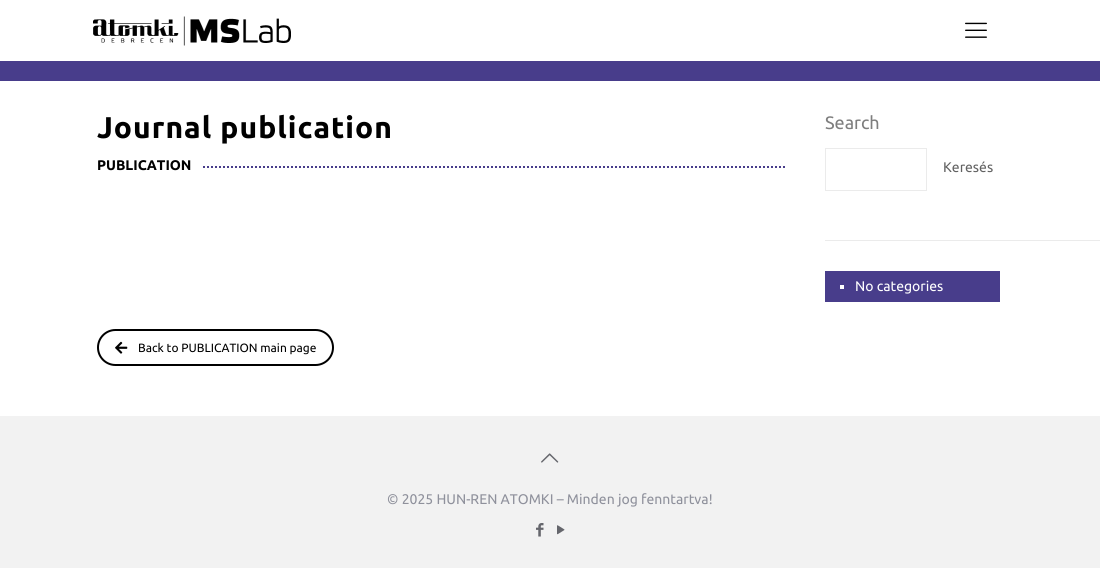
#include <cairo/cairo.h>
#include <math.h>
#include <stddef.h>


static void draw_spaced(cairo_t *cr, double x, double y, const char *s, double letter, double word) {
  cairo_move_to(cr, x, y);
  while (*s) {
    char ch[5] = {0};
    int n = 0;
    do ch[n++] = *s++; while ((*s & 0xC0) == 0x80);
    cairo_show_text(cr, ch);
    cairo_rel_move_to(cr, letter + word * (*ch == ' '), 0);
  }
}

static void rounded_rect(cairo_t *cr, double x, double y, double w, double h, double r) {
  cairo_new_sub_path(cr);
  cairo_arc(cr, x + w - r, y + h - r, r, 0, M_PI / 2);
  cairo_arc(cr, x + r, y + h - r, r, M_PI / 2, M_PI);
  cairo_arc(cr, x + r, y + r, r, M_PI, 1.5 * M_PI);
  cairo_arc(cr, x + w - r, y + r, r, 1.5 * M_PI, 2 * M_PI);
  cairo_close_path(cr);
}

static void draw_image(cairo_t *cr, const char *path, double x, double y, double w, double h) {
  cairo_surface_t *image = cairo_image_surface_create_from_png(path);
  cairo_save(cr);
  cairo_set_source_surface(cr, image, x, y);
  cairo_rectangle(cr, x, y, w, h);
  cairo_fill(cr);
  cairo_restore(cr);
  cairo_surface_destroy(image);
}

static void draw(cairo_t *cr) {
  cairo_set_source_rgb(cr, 1, 1, 1);
  cairo_paint(cr);
  draw_image(cr, "images/1.png", 93, 16, 198, 30);
  draw_image(cr, "images/2.png", 965, 22, 22, 16);
  cairo_set_source_rgb(cr, 72 / 255.0, 61 / 255.0, 139 / 255.0);
  cairo_rectangle(cr, 0, 61, 1100, 20);
  cairo_fill(cr);
  cairo_new_path(cr);
  cairo_move_to(cr, 203, 167);
  cairo_line_to(cr, 787, 167);
  cairo_set_dash(cr, (double[]){2, 2}, 2, 0);
  cairo_stroke(cr);
  rounded_rect(cr, 98, 330, 235, 35, 17.5);
  cairo_set_source_rgb(cr, 0, 0, 0);
  cairo_set_dash(cr, NULL, 0, 0);
  cairo_stroke(cr);
  draw_image(cr, "images/3.png", 115, 341, 13, 13);
  cairo_rectangle(cr, 825.5, 148.5, 101, 42);
  cairo_set_source_rgb(cr, 235 / 255.0, 235 / 255.0, 235 / 255.0);
  cairo_set_line_width(cr, 1);
  cairo_stroke(cr);
  cairo_rectangle(cr, 825, 240, 275, 1);
  cairo_fill(cr);
  cairo_set_source_rgb(cr, 72 / 255.0, 61 / 255.0, 139 / 255.0);
  cairo_rectangle(cr, 825, 271, 175, 31);
  cairo_fill(cr);
  cairo_set_source_rgb(cr, 1, 1, 1);
  cairo_rectangle(cr, 840, 285, 4, 4);
  cairo_fill(cr);
  cairo_set_source_rgb(cr, 242 / 255.0, 242 / 255.0, 242 / 255.0);
  cairo_rectangle(cr, 0, 416, 1100, 152);
  cairo_fill(cr);
  draw_image(cr, "images/4.png", 541, 453, 18, 10);
  draw_image(cr, "images/5.png", 536, 523, 8, 14);
  draw_image(cr, "images/6.png", 557, 525, 8, 10);
  cairo_select_font_face(cr, "Ubuntu", CAIRO_FONT_SLANT_NORMAL, CAIRO_FONT_WEIGHT_BOLD);
  cairo_set_font_size(cr, 30);
  cairo_set_source_rgb(cr, 0, 0, 0);
  draw_spaced(cr, 97, 138, "Journal publication", 1, 0);
  cairo_set_font_size(cr, 14);
  cairo_move_to(cr, 97, 170);
  cairo_show_text(cr, "PUBLICATION");
  cairo_select_font_face(cr, "Ubuntu", CAIRO_FONT_SLANT_NORMAL, CAIRO_FONT_WEIGHT_NORMAL);
  cairo_set_font_size(cr, 12);
  cairo_move_to(cr, 138, 352);
  cairo_show_text(cr, "Back to PUBLICATION main page");
  cairo_set_font_size(cr, 18);
  cairo_set_source_rgb(cr, 126 / 255.0, 126 / 255.0, 126 / 255.0);
  cairo_move_to(cr, 825, 129);
  cairo_show_text(cr, "Search");
  cairo_set_font_size(cr, 14);
  cairo_set_source_rgb(cr, 98 / 255.0, 98 / 255.0, 98 / 255.0);
  cairo_move_to(cr, 943, 172);
  cairo_show_text(cr, "Keresés");
  cairo_set_source_rgb(cr, 1, 1, 1);
  cairo_move_to(cr, 855, 291);
  cairo_show_text(cr, "No categories");
  cairo_set_source_rgb(cr, 143 / 255.0, 145 / 255.0, 156 / 255.0);
  cairo_move_to(cr, 387, 504);
  cairo_show_text(cr, "© 2025 HUN-REN ATOMKI – Minden jog fenntartva!");
}

int main(void) {
  cairo_surface_t *surface = cairo_image_surface_create(CAIRO_FORMAT_RGB24, 1100, 568);
  cairo_t *cr = cairo_create(surface);
  cairo_font_options_t *options = cairo_font_options_create();
  cairo_font_options_set_hint_metrics(options, CAIRO_HINT_METRICS_OFF);
  cairo_font_options_set_hint_style(options, CAIRO_HINT_STYLE_NONE);
  cairo_set_font_options(cr, options);
  cairo_set_miter_limit(cr, 4);
  draw(cr);
  cairo_surface_write_to_png(surface, "out.png");
  cairo_font_options_destroy(options);
  cairo_destroy(cr);
  cairo_surface_destroy(surface);
  return 0;
}
